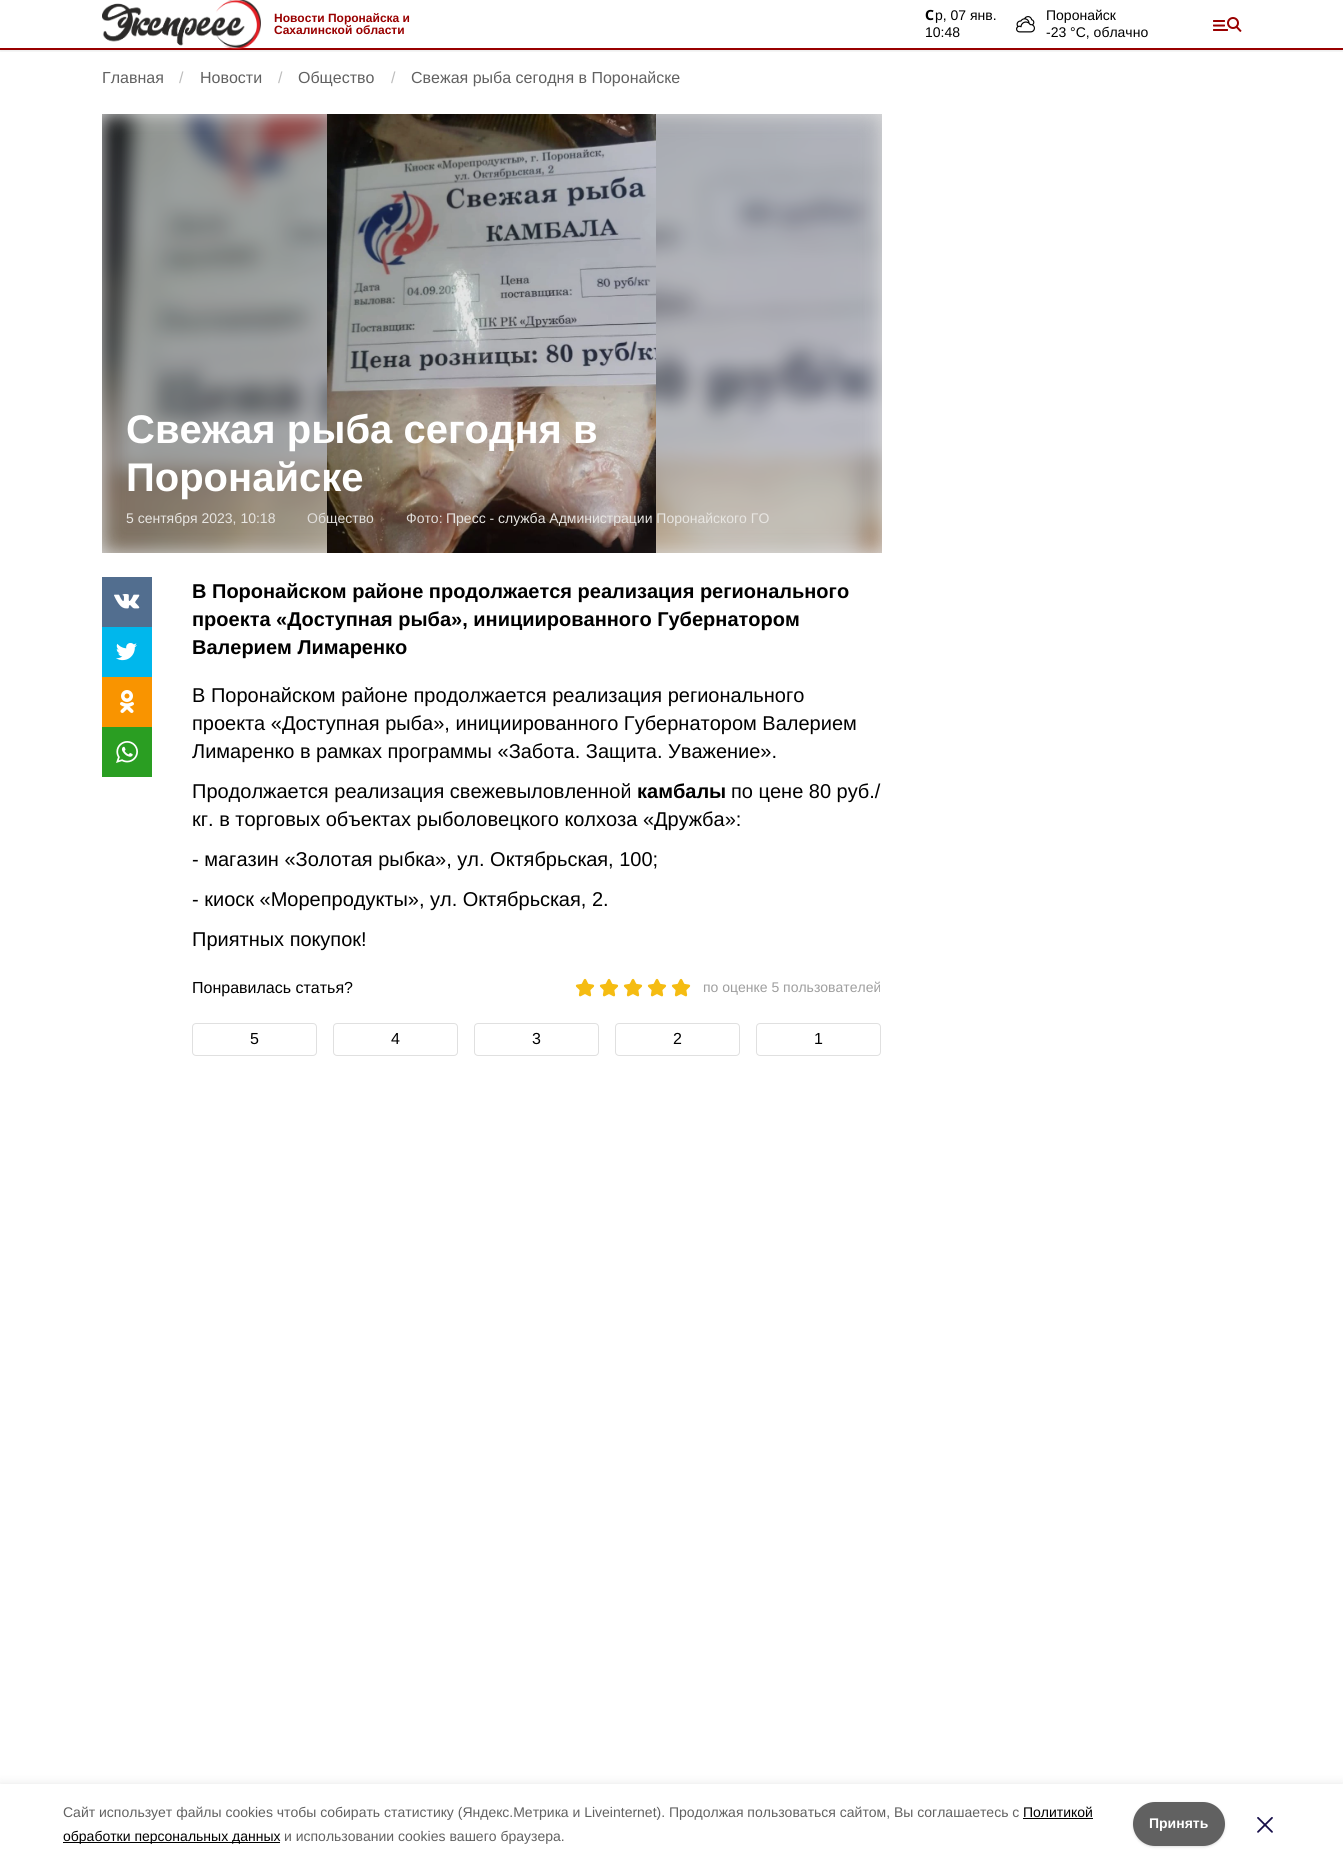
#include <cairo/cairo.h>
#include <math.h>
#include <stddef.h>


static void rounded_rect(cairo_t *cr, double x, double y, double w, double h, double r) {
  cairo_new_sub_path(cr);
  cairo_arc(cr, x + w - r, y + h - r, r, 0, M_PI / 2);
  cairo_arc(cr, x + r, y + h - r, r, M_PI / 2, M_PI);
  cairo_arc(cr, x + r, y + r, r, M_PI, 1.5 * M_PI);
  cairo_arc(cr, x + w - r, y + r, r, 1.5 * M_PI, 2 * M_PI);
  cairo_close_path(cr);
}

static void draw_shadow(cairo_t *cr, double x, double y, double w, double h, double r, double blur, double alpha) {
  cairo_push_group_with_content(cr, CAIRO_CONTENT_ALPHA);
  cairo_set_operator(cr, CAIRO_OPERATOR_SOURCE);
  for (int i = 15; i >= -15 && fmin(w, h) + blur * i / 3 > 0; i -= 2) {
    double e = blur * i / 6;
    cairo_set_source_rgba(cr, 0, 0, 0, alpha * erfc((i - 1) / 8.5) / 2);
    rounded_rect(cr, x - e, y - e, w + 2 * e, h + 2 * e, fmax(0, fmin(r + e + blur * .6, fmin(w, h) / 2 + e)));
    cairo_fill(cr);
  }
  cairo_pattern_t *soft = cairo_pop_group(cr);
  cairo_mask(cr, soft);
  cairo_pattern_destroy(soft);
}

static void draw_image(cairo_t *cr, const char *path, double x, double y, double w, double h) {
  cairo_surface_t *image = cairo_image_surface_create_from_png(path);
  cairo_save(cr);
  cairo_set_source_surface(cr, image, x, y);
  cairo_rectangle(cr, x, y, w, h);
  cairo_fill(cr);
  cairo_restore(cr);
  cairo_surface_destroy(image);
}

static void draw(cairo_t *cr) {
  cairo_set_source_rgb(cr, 1, 1, 1);
  cairo_paint(cr);
  cairo_save(cr);
  cairo_rectangle(cr, 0, 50, 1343, 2);
  cairo_clip(cr);
  cairo_set_source_rgb(cr, 0, 0, 0);
  draw_shadow(cr, 0, 1, 1343, 50, 0, 1.5, 0.1);
  cairo_restore(cr);
  cairo_set_source_rgb(cr, 153 / 255.0, 0, 0);
  cairo_rectangle(cr, 0, 48, 1343, 2);
  cairo_fill(cr);
  draw_image(cr, "images/1.png", 102, 0, 159, 49);
  draw_image(cr, "images/2.png", 1016, 16, 19, 17);
  draw_image(cr, "images/3.png", 1213, 17, 29, 15);
  cairo_set_source_rgb(cr, 222 / 255.0, 222 / 255.0, 222 / 255.0);
  cairo_rectangle(cr, 102, 114, 780, 439);
  cairo_fill(cr);
  draw_image(cr, "images/4.png", 102, 114, 780, 439);
  draw_image(cr, "images/5.png", 327, 114, 329, 439);
  cairo_set_source_rgb(cr, 82 / 255.0, 110 / 255.0, 143 / 255.0);
  cairo_rectangle(cr, 102, 577, 50, 50);
  cairo_fill(cr);
  draw_image(cr, "images/6.png", 114, 594, 26, 15);
  cairo_set_source_rgb(cr, 0, 183 / 255.0, 236 / 255.0);
  cairo_rectangle(cr, 102, 627, 50, 50);
  cairo_fill(cr);
  draw_image(cr, "images/7.png", 116, 643, 21, 18);
  cairo_set_source_rgb(cr, 249 / 255.0, 148 / 255.0, 0);
  cairo_rectangle(cr, 102, 677, 50, 50);
  cairo_fill(cr);
  draw_image(cr, "images/8.png", 120, 690, 14, 23);
  cairo_set_source_rgb(cr, 42 / 255.0, 158 / 255.0, 34 / 255.0);
  cairo_rectangle(cr, 102, 727, 50, 50);
  cairo_fill(cr);
  draw_image(cr, "images/9.png", 116, 741, 22, 22);
  draw_image(cr, "images/10.png", 575, 978, 20, 19);
  draw_image(cr, "images/10.png", 599, 978, 20, 19);
  draw_image(cr, "images/10.png", 623, 978, 20, 19);
  draw_image(cr, "images/10.png", 647, 978, 20, 19);
  draw_image(cr, "images/10.png", 671, 978, 20, 19);
  rounded_rect(cr, 192.5, 1023.5, 124, 32, 3.5);
  cairo_set_source_rgb(cr, 224 / 255.0, 224 / 255.0, 224 / 255.0);
  cairo_set_line_width(cr, 1);
  cairo_stroke(cr);
  rounded_rect(cr, 333.5, 1023.5, 124, 32, 3.5);
  cairo_stroke(cr);
  rounded_rect(cr, 474.5, 1023.5, 124, 32, 3.5);
  cairo_stroke(cr);
  rounded_rect(cr, 615.5, 1023.5, 124, 32, 3.5);
  cairo_stroke(cr);
  rounded_rect(cr, 756.5, 1023.5, 124, 32, 3.5);
  cairo_stroke(cr);
  cairo_set_source_rgb(cr, 0, 0, 0);
  draw_shadow(cr, 0, 1784, 1343, 80, 0, 5, 0.1);
  cairo_set_source_rgb(cr, 1, 1, 1);
  cairo_rectangle(cr, 0, 1784, 1343, 80);
  cairo_fill(cr);
  cairo_set_source_rgb(cr, 0, 0, 0);
  cairo_rectangle(cr, 1023, 1818, 70, 1);
  cairo_fill(cr);
  cairo_rectangle(cr, 63, 1842, 217, 1);
  cairo_fill(cr);
  cairo_set_source_rgb(cr, 0, 0, 0);
  draw_shadow(cr, 1134, 1804, 90, 42, 21, 1, 0.1);
  draw_shadow(cr, 1133, 1803, 92, 44, 22, 1.5, 0.1);
  cairo_set_source_rgb(cr, 97 / 255.0, 97 / 255.0, 97 / 255.0);
  rounded_rect(cr, 1133, 1802, 92, 44, 22);
  cairo_fill(cr);
  draw_image(cr, "images/11.png", 1257, 1817, 16, 16);
  cairo_select_font_face(cr, "Liberation Sans", CAIRO_FONT_SLANT_NORMAL, CAIRO_FONT_WEIGHT_BOLD);
  cairo_set_font_size(cr, 12);
  cairo_set_source_rgb(cr, 153 / 255.0, 0, 0);
  cairo_move_to(cr, 274, 22);
  cairo_show_text(cr, "Новости Поронайска и");
  cairo_move_to(cr, 274, 34);
  cairo_show_text(cr, "Сахалинской области");
  cairo_select_font_face(cr, "Noto Sans", CAIRO_FONT_SLANT_NORMAL, CAIRO_FONT_WEIGHT_BOLD);
  cairo_set_font_size(cr, 14);
  cairo_set_source_rgb(cr, 0, 0, 0);
  cairo_move_to(cr, 925, 20);
  cairo_show_text(cr, "С");
  cairo_select_font_face(cr, "Liberation Sans", CAIRO_FONT_SLANT_NORMAL, CAIRO_FONT_WEIGHT_NORMAL);
  cairo_move_to(cr, 935, 20);
  cairo_show_text(cr, "р, 07 янв.");
  cairo_move_to(cr, 925, 37);
  cairo_show_text(cr, "10:48");
  cairo_move_to(cr, 1046, 20);
  cairo_show_text(cr, "Поронайск");
  cairo_move_to(cr, 1046, 37);
  cairo_show_text(cr, "-23 °С, облачно");
  cairo_set_font_size(cr, 16);
  cairo_set_source_rgb(cr, 97 / 255.0, 97 / 255.0, 97 / 255.0);
  cairo_move_to(cr, 102, 83);
  cairo_show_text(cr, "Главная");
  cairo_set_source_rgb(cr, 189 / 255.0, 189 / 255.0, 189 / 255.0);
  cairo_move_to(cr, 179, 83);
  cairo_show_text(cr, "/");
  cairo_set_source_rgb(cr, 97 / 255.0, 97 / 255.0, 97 / 255.0);
  cairo_move_to(cr, 200, 83);
  cairo_show_text(cr, "Новости");
  cairo_set_source_rgb(cr, 189 / 255.0, 189 / 255.0, 189 / 255.0);
  cairo_move_to(cr, 278, 83);
  cairo_show_text(cr, "/");
  cairo_set_source_rgb(cr, 97 / 255.0, 97 / 255.0, 97 / 255.0);
  cairo_move_to(cr, 298, 83);
  cairo_show_text(cr, "Общество");
  cairo_set_source_rgb(cr, 189 / 255.0, 189 / 255.0, 189 / 255.0);
  cairo_move_to(cr, 391, 83);
  cairo_show_text(cr, "/");
  cairo_set_source_rgb(cr, 97 / 255.0, 97 / 255.0, 97 / 255.0);
  cairo_move_to(cr, 411, 83);
  cairo_show_text(cr, "Свежая рыба сегодня в Поронайске");
  cairo_select_font_face(cr, "Liberation Sans", CAIRO_FONT_SLANT_NORMAL, CAIRO_FONT_WEIGHT_BOLD);
  cairo_set_font_size(cr, 40);
  cairo_set_source_rgb(cr, 1, 1, 1);
  cairo_move_to(cr, 126, 443);
  cairo_show_text(cr, "Свежая рыба сегодня в");
  cairo_move_to(cr, 126, 491);
  cairo_show_text(cr, "Поронайске");
  cairo_select_font_face(cr, "Liberation Sans", CAIRO_FONT_SLANT_NORMAL, CAIRO_FONT_WEIGHT_NORMAL);
  cairo_set_font_size(cr, 14);
  cairo_set_source_rgb(cr, 232 / 255.0, 230 / 255.0, 226 / 255.0);
  cairo_move_to(cr, 126, 523);
  cairo_show_text(cr, "5 сентября 2023, 10:18");
  cairo_set_source_rgb(cr, 224 / 255.0, 221 / 255.0, 218 / 255.0);
  cairo_move_to(cr, 307, 523);
  cairo_show_text(cr, "Общество");
  cairo_move_to(cr, 406, 523);
  cairo_show_text(cr, "Фото:");
  cairo_set_source_rgb(cr, 232 / 255.0, 230 / 255.0, 226 / 255.0);
  cairo_move_to(cr, 446, 523);
  cairo_show_text(cr, "Пресс - служба Администрации Поронайского ГО");
  cairo_select_font_face(cr, "Liberation Sans", CAIRO_FONT_SLANT_NORMAL, CAIRO_FONT_WEIGHT_BOLD);
  cairo_set_font_size(cr, 20);
  cairo_set_source_rgb(cr, 0, 0, 0);
  cairo_move_to(cr, 192, 598);
  cairo_show_text(cr, "В Поронайском районе продолжается реализация регионального");
  cairo_move_to(cr, 192, 626);
  cairo_show_text(cr, "проекта «Доступная рыба», инициированного Губернатором");
  cairo_move_to(cr, 192, 654);
  cairo_show_text(cr, "Валерием Лимаренко");
  cairo_select_font_face(cr, "Liberation Sans", CAIRO_FONT_SLANT_NORMAL, CAIRO_FONT_WEIGHT_NORMAL);
  cairo_move_to(cr, 192, 702);
  cairo_show_text(cr, "В Поронайском районе продолжается реализация регионального");
  cairo_move_to(cr, 192, 730);
  cairo_show_text(cr, "проекта «Доступная рыба», инициированного Губернатором Валерием");
  cairo_move_to(cr, 192, 758);
  cairo_show_text(cr, "Лимаренко в рамках программы «Забота. Защита. Уважение».");
  cairo_move_to(cr, 192, 798);
  cairo_show_text(cr, "Продолжается реализация свежевыловленной");
  cairo_select_font_face(cr, "Liberation Sans", CAIRO_FONT_SLANT_NORMAL, CAIRO_FONT_WEIGHT_BOLD);
  cairo_move_to(cr, 637, 798);
  cairo_show_text(cr, "камбалы");
  cairo_select_font_face(cr, "Liberation Sans", CAIRO_FONT_SLANT_NORMAL, CAIRO_FONT_WEIGHT_NORMAL);
  cairo_move_to(cr, 731, 798);
  cairo_show_text(cr, "по цене 80 руб./");
  cairo_move_to(cr, 192, 826);
  cairo_show_text(cr, "кг. в торговых объектах рыболовецкого колхоза «Дружба»:");
  cairo_move_to(cr, 192, 866);
  cairo_show_text(cr, "- магазин «Золотая рыбка», ул. Октябрьская, 100;");
  cairo_move_to(cr, 192, 906);
  cairo_show_text(cr, "- киоск «Морепродукты», ул. Октябрьская, 2.");
  cairo_move_to(cr, 192, 946);
  cairo_show_text(cr, "Приятных покупок!");
  cairo_set_font_size(cr, 16);
  cairo_move_to(cr, 192, 993);
  cairo_show_text(cr, "Понравилась статья?");
  cairo_set_font_size(cr, 14);
  cairo_set_source_rgb(cr, 158 / 255.0, 158 / 255.0, 158 / 255.0);
  cairo_move_to(cr, 703, 992);
  cairo_show_text(cr, "по оценке 5 пользователей");
  cairo_set_font_size(cr, 16);
  cairo_set_source_rgb(cr, 0, 0, 0);
  cairo_move_to(cr, 250, 1044);
  cairo_show_text(cr, "5");
  cairo_move_to(cr, 391, 1044);
  cairo_show_text(cr, "4");
  cairo_move_to(cr, 532, 1044);
  cairo_show_text(cr, "3");
  cairo_move_to(cr, 673, 1044);
  cairo_show_text(cr, "2");
  cairo_move_to(cr, 814, 1044);
  cairo_show_text(cr, "1");
  cairo_set_font_size(cr, 14);
  cairo_set_source_rgb(cr, 97 / 255.0, 97 / 255.0, 97 / 255.0);
  cairo_move_to(cr, 63, 1817);
  cairo_show_text(cr, "Cайт использует файлы cookies чтобы собирать статистику (Яндекс.Метрика и Liveinternet). Продолжая пользоваться сайтом, Вы соглашаетесь с");
  cairo_set_source_rgb(cr, 0, 0, 0);
  cairo_move_to(cr, 1023, 1817);
  cairo_show_text(cr, "Политикой");
  cairo_move_to(cr, 63, 1841);
  cairo_show_text(cr, "обработки персональных данных");
  cairo_set_source_rgb(cr, 97 / 255.0, 97 / 255.0, 97 / 255.0);
  cairo_move_to(cr, 284, 1841);
  cairo_show_text(cr, "и использовании cookies вашего браузера.");
  cairo_select_font_face(cr, "Liberation Sans", CAIRO_FONT_SLANT_NORMAL, CAIRO_FONT_WEIGHT_BOLD);
  cairo_set_source_rgb(cr, 1, 1, 1);
  cairo_move_to(cr, 1149, 1828);
  cairo_show_text(cr, "Принять");
}

int main(void) {
  cairo_surface_t *surface = cairo_image_surface_create(CAIRO_FORMAT_RGB24, 1343, 1864);
  cairo_t *cr = cairo_create(surface);
  cairo_font_options_t *options = cairo_font_options_create();
  cairo_font_options_set_hint_metrics(options, CAIRO_HINT_METRICS_OFF);
  cairo_font_options_set_hint_style(options, CAIRO_HINT_STYLE_NONE);
  cairo_set_font_options(cr, options);
  cairo_set_miter_limit(cr, 4);
  draw(cr);
  cairo_surface_write_to_png(surface, "out.png");
  cairo_font_options_destroy(options);
  cairo_destroy(cr);
  cairo_surface_destroy(surface);
  return 0;
}
